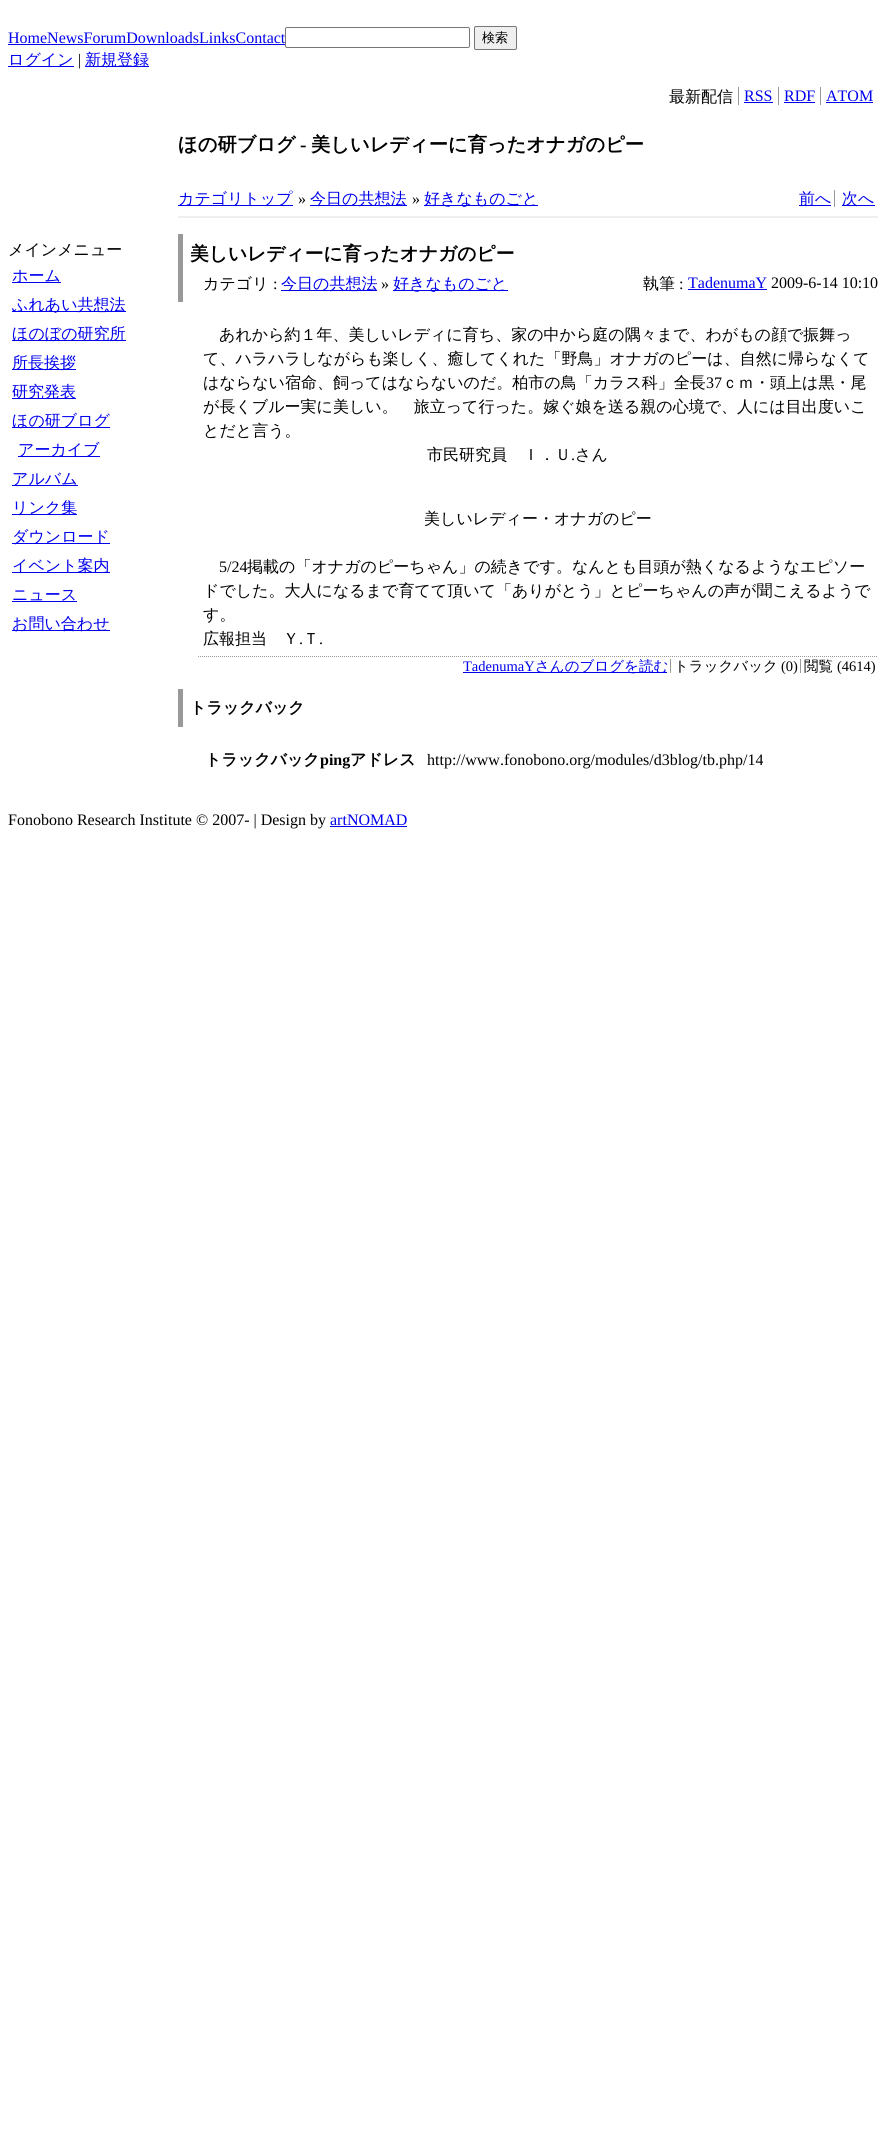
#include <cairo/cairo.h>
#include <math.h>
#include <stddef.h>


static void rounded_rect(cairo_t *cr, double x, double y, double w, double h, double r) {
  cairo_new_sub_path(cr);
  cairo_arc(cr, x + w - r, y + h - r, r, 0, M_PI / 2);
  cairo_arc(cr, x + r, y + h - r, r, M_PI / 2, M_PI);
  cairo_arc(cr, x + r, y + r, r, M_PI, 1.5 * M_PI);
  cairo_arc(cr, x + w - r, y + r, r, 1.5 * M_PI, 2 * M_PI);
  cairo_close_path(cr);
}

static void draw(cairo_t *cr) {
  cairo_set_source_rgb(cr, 1, 1, 1);
  cairo_paint(cr);
  cairo_set_source_rgb(cr, 0, 0, 238 / 255.0);
  cairo_rectangle(cr, 8, 44, 277, 1);
  cairo_fill(cr);
  cairo_set_source_rgb(cr, 239 / 255.0, 239 / 255.0, 239 / 255.0);
  rounded_rect(cr, 474.5, 26.5, 42, 23, 1.5);
  cairo_fill_preserve(cr);
  cairo_set_source_rgb(cr, 118 / 255.0, 118 / 255.0, 118 / 255.0);
  cairo_set_line_width(cr, 1);
  cairo_stroke(cr);
  cairo_set_source_rgb(cr, 0, 0, 238 / 255.0);
  cairo_rectangle(cr, 8, 66, 66, 1);
  cairo_fill(cr);
  cairo_rectangle(cr, 85, 66, 64, 1);
  cairo_fill(cr);
  cairo_rectangle(cr, 12, 282, 49, 1);
  cairo_fill(cr);
  cairo_rectangle(cr, 12, 311, 114, 1);
  cairo_fill(cr);
  cairo_rectangle(cr, 12, 340, 114, 1);
  cairo_fill(cr);
  cairo_rectangle(cr, 12, 369, 64, 1);
  cairo_fill(cr);
  cairo_rectangle(cr, 12, 398, 64, 1);
  cairo_fill(cr);
  cairo_rectangle(cr, 12, 427, 98, 1);
  cairo_fill(cr);
  cairo_rectangle(cr, 18, 456, 82, 1);
  cairo_fill(cr);
  cairo_rectangle(cr, 12, 485, 66, 1);
  cairo_fill(cr);
  cairo_rectangle(cr, 12, 514, 65, 1);
  cairo_fill(cr);
  cairo_rectangle(cr, 12, 543, 98, 1);
  cairo_fill(cr);
  cairo_rectangle(cr, 12, 572, 98, 1);
  cairo_fill(cr);
  cairo_rectangle(cr, 12, 601, 65, 1);
  cairo_fill(cr);
  cairo_rectangle(cr, 12, 630, 98, 1);
  cairo_fill(cr);
  cairo_set_source_rgb(cr, 153 / 255.0, 153 / 255.0, 153 / 255.0);
  cairo_rectangle(cr, 738, 87, 1, 18);
  cairo_fill(cr);
  cairo_set_source_rgb(cr, 0, 0, 238 / 255.0);
  cairo_rectangle(cr, 744, 102, 29, 1);
  cairo_fill(cr);
  cairo_set_source_rgb(cr, 153 / 255.0, 153 / 255.0, 153 / 255.0);
  cairo_rectangle(cr, 778, 87, 1, 18);
  cairo_fill(cr);
  cairo_set_source_rgb(cr, 0, 0, 238 / 255.0);
  cairo_rectangle(cr, 784, 102, 31, 1);
  cairo_fill(cr);
  cairo_set_source_rgb(cr, 153 / 255.0, 153 / 255.0, 153 / 255.0);
  cairo_rectangle(cr, 820, 87, 1, 18);
  cairo_fill(cr);
  cairo_set_source_rgb(cr, 0, 0, 238 / 255.0);
  cairo_rectangle(cr, 826, 102, 47, 1);
  cairo_fill(cr);
  cairo_set_source_rgb(cr, 238 / 255.0, 238 / 255.0, 238 / 255.0);
  cairo_rectangle(cr, 178, 216, 700, 2);
  cairo_fill(cr);
  cairo_set_source_rgb(cr, 0, 0, 238 / 255.0);
  cairo_rectangle(cr, 178, 205, 115, 1);
  cairo_fill(cr);
  cairo_rectangle(cr, 310, 205, 97, 1);
  cairo_fill(cr);
  cairo_rectangle(cr, 424, 205, 114, 1);
  cairo_fill(cr);
  cairo_set_source_rgb(cr, 153 / 255.0, 153 / 255.0, 153 / 255.0);
  cairo_rectangle(cr, 834, 190, 1, 17);
  cairo_fill(cr);
  cairo_set_source_rgb(cr, 0, 0, 238 / 255.0);
  cairo_rectangle(cr, 799, 205, 32, 1);
  cairo_fill(cr);
  cairo_rectangle(cr, 842, 205, 33, 1);
  cairo_fill(cr);
  cairo_set_source_rgb(cr, 153 / 255.0, 153 / 255.0, 153 / 255.0);
  cairo_rectangle(cr, 178, 234, 5, 68);
  cairo_fill(cr);
  cairo_set_source_rgb(cr, 0, 0, 238 / 255.0);
  cairo_rectangle(cr, 281, 290, 96, 1);
  cairo_fill(cr);
  cairo_rectangle(cr, 393, 290, 115, 1);
  cairo_fill(cr);
  cairo_rectangle(cr, 688, 289, 79, 1);
  cairo_fill(cr);
  cairo_new_path(cr);
  cairo_move_to(cr, 198, 656.5);
  cairo_line_to(cr, 878, 656.5);
  cairo_set_source_rgb(cr, 153 / 255.0, 153 / 255.0, 153 / 255.0);
  cairo_set_dash(cr, (double[]){1, 1}, 2, 0);
  cairo_stroke(cr);
  cairo_rectangle(cr, 670, 659, 1, 14);
  cairo_fill(cr);
  cairo_set_source_rgb(cr, 0, 0, 238 / 255.0);
  cairo_rectangle(cr, 463, 672, 204, 1);
  cairo_fill(cr);
  cairo_set_source_rgb(cr, 153 / 255.0, 153 / 255.0, 153 / 255.0);
  cairo_rectangle(cr, 800, 659, 1, 14);
  cairo_fill(cr);
  cairo_rectangle(cr, 178, 689, 5, 38);
  cairo_fill(cr);
  cairo_set_source_rgb(cr, 0, 0, 238 / 255.0);
  cairo_rectangle(cr, 330, 826, 77, 1);
  cairo_fill(cr);
  cairo_select_font_face(cr, "Liberation Serif", CAIRO_FONT_SLANT_NORMAL, CAIRO_FONT_WEIGHT_NORMAL);
  cairo_set_font_size(cr, 16);
  cairo_move_to(cr, 8, 43);
  cairo_show_text(cr, "HomeNewsForumDownloadsLinksContact");
  cairo_set_source_rgb(cr, 1, 1, 1);
  rounded_rect(cr, 285.5, 27.5, 184, 20, 1.5);
  cairo_fill_preserve(cr);
  cairo_set_source_rgb(cr, 118 / 255.0, 118 / 255.0, 118 / 255.0);
  cairo_set_dash(cr, NULL, 0, 0);
  cairo_stroke(cr);
  cairo_select_font_face(cr, "WenQuanYi Zen Hei Medium", CAIRO_FONT_SLANT_NORMAL, CAIRO_FONT_WEIGHT_NORMAL);
  cairo_set_font_size(cr, 13);
  cairo_set_source_rgb(cr, 0, 0, 0);
  cairo_move_to(cr, 482, 42);
  cairo_show_text(cr, "検索");
  cairo_set_font_size(cr, 16);
  cairo_set_source_rgb(cr, 0, 0, 238 / 255.0);
  cairo_move_to(cr, 8, 65);
  cairo_show_text(cr, "ログイン");
  cairo_select_font_face(cr, "Liberation Serif", CAIRO_FONT_SLANT_NORMAL, CAIRO_FONT_WEIGHT_NORMAL);
  cairo_set_source_rgb(cr, 0, 0, 0);
  cairo_move_to(cr, 78, 65);
  cairo_show_text(cr, "|");
  cairo_select_font_face(cr, "WenQuanYi Zen Hei Medium", CAIRO_FONT_SLANT_NORMAL, CAIRO_FONT_WEIGHT_NORMAL);
  cairo_set_source_rgb(cr, 0, 0, 238 / 255.0);
  cairo_move_to(cr, 85, 65);
  cairo_show_text(cr, "新規登録");
  cairo_set_source_rgb(cr, 0, 0, 0);
  cairo_move_to(cr, 8, 255);
  cairo_show_text(cr, "メインメニュー");
  cairo_set_source_rgb(cr, 0, 0, 238 / 255.0);
  cairo_move_to(cr, 12, 281);
  cairo_show_text(cr, "ホーム");
  cairo_move_to(cr, 12, 310);
  cairo_show_text(cr, "ふれあい共想法");
  cairo_move_to(cr, 12, 339);
  cairo_show_text(cr, "ほのぼの研究所");
  cairo_move_to(cr, 12, 368);
  cairo_show_text(cr, "所長挨拶");
  cairo_move_to(cr, 12, 397);
  cairo_show_text(cr, "研究発表");
  cairo_move_to(cr, 12, 426);
  cairo_show_text(cr, "ほの研ブログ");
  cairo_move_to(cr, 18, 455);
  cairo_show_text(cr, "アーカイブ");
  cairo_move_to(cr, 12, 484);
  cairo_show_text(cr, "アルバム");
  cairo_move_to(cr, 12, 513);
  cairo_show_text(cr, "リンク集");
  cairo_move_to(cr, 12, 542);
  cairo_show_text(cr, "ダウンロード");
  cairo_move_to(cr, 12, 571);
  cairo_show_text(cr, "イベント案内");
  cairo_move_to(cr, 12, 600);
  cairo_show_text(cr, "ニュース");
  cairo_move_to(cr, 12, 629);
  cairo_show_text(cr, "お問い合わせ");
  cairo_set_source_rgb(cr, 0, 0, 0);
  cairo_move_to(cr, 669, 102);
  cairo_show_text(cr, "最新配信");
  cairo_select_font_face(cr, "Liberation Serif", CAIRO_FONT_SLANT_NORMAL, CAIRO_FONT_WEIGHT_NORMAL);
  cairo_set_source_rgb(cr, 0, 0, 238 / 255.0);
  cairo_move_to(cr, 744, 101);
  cairo_show_text(cr, "RSS");
  cairo_move_to(cr, 784, 101);
  cairo_show_text(cr, "RDF");
  cairo_move_to(cr, 826, 101);
  cairo_show_text(cr, "ATOM");
  cairo_select_font_face(cr, "WenQuanYi Zen Hei", CAIRO_FONT_SLANT_NORMAL, CAIRO_FONT_WEIGHT_BOLD);
  cairo_set_font_size(cr, 19.25);
  cairo_set_source_rgb(cr, 0, 0, 0);
  cairo_move_to(cr, 178, 151);
  cairo_show_text(cr, "ほの研ブログ");
  cairo_select_font_face(cr, "Liberation Serif", CAIRO_FONT_SLANT_NORMAL, CAIRO_FONT_WEIGHT_BOLD);
  cairo_move_to(cr, 300, 151);
  cairo_show_text(cr, "-");
  cairo_select_font_face(cr, "WenQuanYi Zen Hei", CAIRO_FONT_SLANT_NORMAL, CAIRO_FONT_WEIGHT_BOLD);
  cairo_move_to(cr, 311, 151);
  cairo_show_text(cr, "美しいレディーに育ったオナガのピー");
  cairo_select_font_face(cr, "WenQuanYi Zen Hei Medium", CAIRO_FONT_SLANT_NORMAL, CAIRO_FONT_WEIGHT_NORMAL);
  cairo_set_font_size(cr, 16);
  cairo_set_source_rgb(cr, 0, 0, 238 / 255.0);
  cairo_move_to(cr, 178, 204);
  cairo_show_text(cr, "カテゴリトップ");
  cairo_select_font_face(cr, "Liberation Serif", CAIRO_FONT_SLANT_NORMAL, CAIRO_FONT_WEIGHT_NORMAL);
  cairo_set_source_rgb(cr, 0, 0, 0);
  cairo_move_to(cr, 298, 204);
  cairo_show_text(cr, "»");
  cairo_select_font_face(cr, "WenQuanYi Zen Hei Medium", CAIRO_FONT_SLANT_NORMAL, CAIRO_FONT_WEIGHT_NORMAL);
  cairo_set_source_rgb(cr, 0, 0, 238 / 255.0);
  cairo_move_to(cr, 310, 204);
  cairo_show_text(cr, "今日の共想法");
  cairo_select_font_face(cr, "Liberation Serif", CAIRO_FONT_SLANT_NORMAL, CAIRO_FONT_WEIGHT_NORMAL);
  cairo_set_source_rgb(cr, 0, 0, 0);
  cairo_move_to(cr, 412, 204);
  cairo_show_text(cr, "»");
  cairo_select_font_face(cr, "WenQuanYi Zen Hei Medium", CAIRO_FONT_SLANT_NORMAL, CAIRO_FONT_WEIGHT_NORMAL);
  cairo_set_source_rgb(cr, 0, 0, 238 / 255.0);
  cairo_move_to(cr, 424, 204);
  cairo_show_text(cr, "好きなものごと");
  cairo_move_to(cr, 799, 204);
  cairo_show_text(cr, "前へ");
  cairo_move_to(cr, 842, 204);
  cairo_show_text(cr, "次へ");
  cairo_select_font_face(cr, "WenQuanYi Zen Hei", CAIRO_FONT_SLANT_NORMAL, CAIRO_FONT_WEIGHT_BOLD);
  cairo_set_font_size(cr, 18.75);
  cairo_set_source_rgb(cr, 0, 0, 0);
  cairo_move_to(cr, 190, 260);
  cairo_show_text(cr, "美しいレディーに育ったオナガのピー");
  cairo_select_font_face(cr, "WenQuanYi Zen Hei Medium", CAIRO_FONT_SLANT_NORMAL, CAIRO_FONT_WEIGHT_NORMAL);
  cairo_set_font_size(cr, 16);
  cairo_move_to(cr, 203, 289);
  cairo_show_text(cr, "カテゴリ");
  cairo_select_font_face(cr, "Liberation Serif", CAIRO_FONT_SLANT_NORMAL, CAIRO_FONT_WEIGHT_NORMAL);
  cairo_move_to(cr, 273, 289);
  cairo_show_text(cr, ":");
  cairo_select_font_face(cr, "WenQuanYi Zen Hei Medium", CAIRO_FONT_SLANT_NORMAL, CAIRO_FONT_WEIGHT_NORMAL);
  cairo_set_source_rgb(cr, 0, 0, 238 / 255.0);
  cairo_move_to(cr, 281, 289);
  cairo_show_text(cr, "今日の共想法");
  cairo_select_font_face(cr, "Liberation Serif", CAIRO_FONT_SLANT_NORMAL, CAIRO_FONT_WEIGHT_NORMAL);
  cairo_set_source_rgb(cr, 0, 0, 0);
  cairo_move_to(cr, 381, 289);
  cairo_show_text(cr, "»");
  cairo_select_font_face(cr, "WenQuanYi Zen Hei Medium", CAIRO_FONT_SLANT_NORMAL, CAIRO_FONT_WEIGHT_NORMAL);
  cairo_set_source_rgb(cr, 0, 0, 238 / 255.0);
  cairo_move_to(cr, 393, 289);
  cairo_show_text(cr, "好きなものごと");
  cairo_set_source_rgb(cr, 0, 0, 0);
  cairo_move_to(cr, 643, 289);
  cairo_show_text(cr, "執筆");
  cairo_select_font_face(cr, "Liberation Serif", CAIRO_FONT_SLANT_NORMAL, CAIRO_FONT_WEIGHT_NORMAL);
  cairo_move_to(cr, 679, 289);
  cairo_show_text(cr, ":");
  cairo_set_source_rgb(cr, 0, 0, 238 / 255.0);
  cairo_move_to(cr, 688, 288);
  cairo_show_text(cr, "TadenumaY");
  cairo_set_source_rgb(cr, 0, 0, 0);
  cairo_move_to(cr, 771, 288);
  cairo_show_text(cr, "2009-6-14 10:10");
  cairo_select_font_face(cr, "WenQuanYi Zen Hei Medium", CAIRO_FONT_SLANT_NORMAL, CAIRO_FONT_WEIGHT_NORMAL);
  cairo_move_to(cr, 219, 340);
  cairo_show_text(cr, "あれから約１年、美しいレディに育ち、家の中から庭の隅々まで、わがもの顔で振舞っ");
  cairo_move_to(cr, 203, 364);
  cairo_show_text(cr, "て、ハラハラしながらも楽しく、癒してくれた「野鳥」オナガのピーは、自然に帰らなくて");
  cairo_move_to(cr, 203, 388);
  cairo_show_text(cr, "はならない宿命、飼ってはならないのだ。柏市の鳥「カラス科」全長");
  cairo_select_font_face(cr, "Liberation Serif", CAIRO_FONT_SLANT_NORMAL, CAIRO_FONT_WEIGHT_NORMAL);
  cairo_move_to(cr, 706, 388);
  cairo_show_text(cr, "37");
  cairo_select_font_face(cr, "WenQuanYi Zen Hei Medium", CAIRO_FONT_SLANT_NORMAL, CAIRO_FONT_WEIGHT_NORMAL);
  cairo_move_to(cr, 722, 388);
  cairo_show_text(cr, "ｃｍ・頭上は黒・尾");
  cairo_move_to(cr, 203, 412);
  cairo_show_text(cr, "が長くブルー実に美しい。　旅立って行った。嫁ぐ娘を送る親の心境で、人には目出度いこ");
  cairo_move_to(cr, 203, 436);
  cairo_show_text(cr, "とだと言う。");
  cairo_move_to(cr, 427, 460);
  cairo_show_text(cr, "市民研究員　Ｉ．Ｕ");
  cairo_select_font_face(cr, "Liberation Serif", CAIRO_FONT_SLANT_NORMAL, CAIRO_FONT_WEIGHT_NORMAL);
  cairo_move_to(cr, 571, 460);
  cairo_show_text(cr, ".");
  cairo_select_font_face(cr, "WenQuanYi Zen Hei Medium", CAIRO_FONT_SLANT_NORMAL, CAIRO_FONT_WEIGHT_NORMAL);
  cairo_move_to(cr, 575, 460);
  cairo_show_text(cr, "さん");
  cairo_move_to(cr, 424, 524);
  cairo_show_text(cr, "美しいレディー・オナガのピー");
  cairo_select_font_face(cr, "Liberation Serif", CAIRO_FONT_SLANT_NORMAL, CAIRO_FONT_WEIGHT_NORMAL);
  cairo_move_to(cr, 219, 572);
  cairo_show_text(cr, "5/24");
  cairo_select_font_face(cr, "WenQuanYi Zen Hei Medium", CAIRO_FONT_SLANT_NORMAL, CAIRO_FONT_WEIGHT_NORMAL);
  cairo_move_to(cr, 247, 572);
  cairo_show_text(cr, "掲載の「オナガのピーちゃん」の続きです。なんとも目頭が熱くなるようなエピソー");
  cairo_move_to(cr, 203, 596);
  cairo_show_text(cr, "ドでした。大人になるまで育てて頂いて「ありがとう」とピーちゃんの声が聞こえるようで");
  cairo_move_to(cr, 203, 620);
  cairo_show_text(cr, "す。");
  cairo_move_to(cr, 203, 644);
  cairo_show_text(cr, "広報担当　Ｙ");
  cairo_select_font_face(cr, "Liberation Serif", CAIRO_FONT_SLANT_NORMAL, CAIRO_FONT_WEIGHT_NORMAL);
  cairo_move_to(cr, 299, 644);
  cairo_show_text(cr, ".");
  cairo_select_font_face(cr, "WenQuanYi Zen Hei Medium", CAIRO_FONT_SLANT_NORMAL, CAIRO_FONT_WEIGHT_NORMAL);
  cairo_move_to(cr, 303, 644);
  cairo_show_text(cr, "Ｔ");
  cairo_select_font_face(cr, "Liberation Serif", CAIRO_FONT_SLANT_NORMAL, CAIRO_FONT_WEIGHT_NORMAL);
  cairo_move_to(cr, 319, 644);
  cairo_show_text(cr, ".");
  cairo_set_font_size(cr, 14.5);
  cairo_set_source_rgb(cr, 0, 0, 238 / 255.0);
  cairo_move_to(cr, 463, 671);
  cairo_show_text(cr, "TadenumaY");
  cairo_select_font_face(cr, "WenQuanYi Zen Hei Medium", CAIRO_FONT_SLANT_NORMAL, CAIRO_FONT_WEIGHT_NORMAL);
  cairo_move_to(cr, 535, 671);
  cairo_show_text(cr, "さんのブログを読む");
  cairo_set_source_rgb(cr, 0, 0, 0);
  cairo_move_to(cr, 674, 671);
  cairo_show_text(cr, "トラックバック");
  cairo_select_font_face(cr, "Liberation Serif", CAIRO_FONT_SLANT_NORMAL, CAIRO_FONT_WEIGHT_NORMAL);
  cairo_move_to(cr, 781, 671);
  cairo_show_text(cr, "(0)");
  cairo_select_font_face(cr, "WenQuanYi Zen Hei Medium", CAIRO_FONT_SLANT_NORMAL, CAIRO_FONT_WEIGHT_NORMAL);
  cairo_move_to(cr, 804, 671);
  cairo_show_text(cr, "閲覧");
  cairo_select_font_face(cr, "Liberation Serif", CAIRO_FONT_SLANT_NORMAL, CAIRO_FONT_WEIGHT_NORMAL);
  cairo_move_to(cr, 837, 671);
  cairo_show_text(cr, "(4614)");
  cairo_select_font_face(cr, "WenQuanYi Zen Hei", CAIRO_FONT_SLANT_NORMAL, CAIRO_FONT_WEIGHT_BOLD);
  cairo_set_font_size(cr, 16);
  cairo_move_to(cr, 190, 713);
  cairo_show_text(cr, "トラックバック");
  cairo_move_to(cr, 205, 765);
  cairo_show_text(cr, "トラックバック");
  cairo_select_font_face(cr, "Liberation Serif", CAIRO_FONT_SLANT_NORMAL, CAIRO_FONT_WEIGHT_BOLD);
  cairo_move_to(cr, 320, 765);
  cairo_show_text(cr, "ping");
  cairo_select_font_face(cr, "WenQuanYi Zen Hei", CAIRO_FONT_SLANT_NORMAL, CAIRO_FONT_WEIGHT_BOLD);
  cairo_move_to(cr, 350, 765);
  cairo_show_text(cr, "アドレス");
  cairo_select_font_face(cr, "Liberation Serif", CAIRO_FONT_SLANT_NORMAL, CAIRO_FONT_WEIGHT_NORMAL);
  cairo_move_to(cr, 427, 765);
  cairo_show_text(cr, "http://www.fonobono.org/modules/d3blog/tb.php/14");
  cairo_move_to(cr, 8, 825);
  cairo_show_text(cr, "Fonobono Research Institute © 2007- | Design by");
  cairo_set_source_rgb(cr, 0, 0, 238 / 255.0);
  cairo_move_to(cr, 330, 825);
  cairo_show_text(cr, "artNOMAD");
}

int main(void) {
  cairo_surface_t *surface = cairo_image_surface_create(CAIRO_FORMAT_RGB24, 886, 2135);
  cairo_t *cr = cairo_create(surface);
  cairo_font_options_t *options = cairo_font_options_create();
  cairo_font_options_set_hint_metrics(options, CAIRO_HINT_METRICS_OFF);
  cairo_font_options_set_hint_style(options, CAIRO_HINT_STYLE_NONE);
  cairo_set_font_options(cr, options);
  cairo_set_miter_limit(cr, 4);
  draw(cr);
  cairo_surface_write_to_png(surface, "out.png");
  cairo_font_options_destroy(options);
  cairo_destroy(cr);
  cairo_surface_destroy(surface);
  return 0;
}
